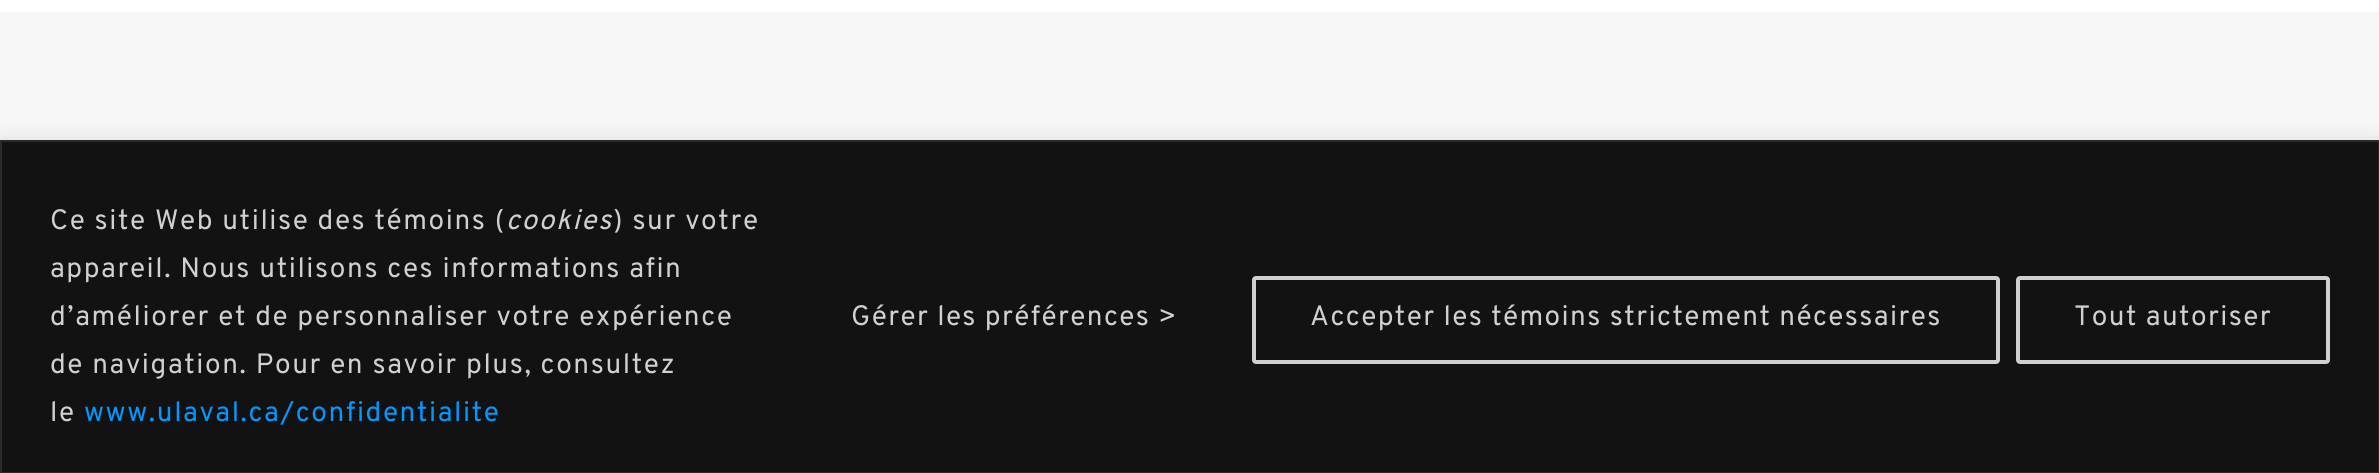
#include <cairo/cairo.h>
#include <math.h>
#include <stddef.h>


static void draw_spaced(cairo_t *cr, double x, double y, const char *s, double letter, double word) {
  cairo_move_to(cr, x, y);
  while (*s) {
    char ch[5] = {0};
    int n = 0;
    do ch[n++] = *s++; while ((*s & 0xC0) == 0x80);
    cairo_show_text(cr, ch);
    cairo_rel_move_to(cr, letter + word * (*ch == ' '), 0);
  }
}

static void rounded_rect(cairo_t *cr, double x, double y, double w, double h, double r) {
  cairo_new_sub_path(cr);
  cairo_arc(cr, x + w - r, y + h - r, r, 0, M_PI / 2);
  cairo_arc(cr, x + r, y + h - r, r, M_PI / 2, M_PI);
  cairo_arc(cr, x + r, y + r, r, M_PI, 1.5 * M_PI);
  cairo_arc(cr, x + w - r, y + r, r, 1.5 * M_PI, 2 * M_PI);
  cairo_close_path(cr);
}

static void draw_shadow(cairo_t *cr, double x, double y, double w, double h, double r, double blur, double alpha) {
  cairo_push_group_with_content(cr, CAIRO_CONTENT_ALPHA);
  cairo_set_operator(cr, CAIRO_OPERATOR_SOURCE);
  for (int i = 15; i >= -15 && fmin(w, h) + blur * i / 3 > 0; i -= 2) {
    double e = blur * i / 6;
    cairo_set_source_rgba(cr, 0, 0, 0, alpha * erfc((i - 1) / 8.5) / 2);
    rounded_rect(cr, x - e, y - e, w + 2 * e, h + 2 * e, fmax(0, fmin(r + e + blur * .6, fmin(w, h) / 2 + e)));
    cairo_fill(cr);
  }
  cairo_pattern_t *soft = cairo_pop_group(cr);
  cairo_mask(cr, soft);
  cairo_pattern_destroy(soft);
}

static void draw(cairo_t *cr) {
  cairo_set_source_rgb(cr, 1, 1, 1);
  cairo_paint(cr);
  cairo_set_source_rgb(cr, 247 / 255.0, 247 / 255.0, 247 / 255.0);
  cairo_rectangle(cr, 0, 12, 2379, 128);
  cairo_fill(cr);
  cairo_set_source_rgb(cr, 172 / 255.0, 171 / 255.0, 171 / 255.0);
  draw_shadow(cr, 0, 138, 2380, 334, 0, 10, 0.3);
  cairo_set_source_rgb(cr, 18 / 255.0, 18 / 255.0, 18 / 255.0);
  cairo_rectangle(cr, 1, 141, 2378, 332);
  cairo_fill_preserve(cr);
  cairo_set_source_rgb(cr, 42 / 255.0, 42 / 255.0, 42 / 255.0);
  cairo_stroke(cr);
  rounded_rect(cr, 1254, 278, 744, 84, 2);
  cairo_set_source_rgb(cr, 208 / 255.0, 208 / 255.0, 208 / 255.0);
  cairo_set_line_width(cr, 4);
  cairo_stroke(cr);
  rounded_rect(cr, 2018, 278, 310, 84, 2);
  cairo_stroke(cr);
  cairo_select_font_face(cr, "Overpass", CAIRO_FONT_SLANT_NORMAL, CAIRO_FONT_WEIGHT_NORMAL);
  cairo_set_font_size(cr, 28);
  draw_spaced(cr, 50, 229, "Ce site Web utilise des témoins (", 1.6, 0);
  cairo_select_font_face(cr, "Overpass", CAIRO_FONT_SLANT_ITALIC, CAIRO_FONT_WEIGHT_NORMAL);
  draw_spaced(cr, 506, 229, "cookies", 1.6, 0);
  cairo_select_font_face(cr, "Overpass", CAIRO_FONT_SLANT_NORMAL, CAIRO_FONT_WEIGHT_NORMAL);
  draw_spaced(cr, 613, 229, ") sur votre", 1.6, 0);
  draw_spaced(cr, 50, 277, "appareil. Nous utilisons ces informations afin", 1.6, 0);
  draw_spaced(cr, 50, 325, "d’améliorer et de personnaliser votre expérience", 1.6, 0);
  draw_spaced(cr, 50, 373, "de navigation. Pour en savoir plus, consultez", 1.6, 0);
  draw_spaced(cr, 50, 421, "le", 1.6, 0);
  cairo_set_source_rgb(cr, 0, 153 / 255.0, 1);
  draw_spaced(cr, 84, 421, "www.ulaval.ca/confidentialite", 1.6, 0);
  cairo_set_source_rgb(cr, 208 / 255.0, 208 / 255.0, 208 / 255.0);
  draw_spaced(cr, 851, 325, "Gérer les préférences >", 1.4, 0);
  draw_spaced(cr, 1310, 325, "Accepter les témoins strictement nécessaires", 1.4, 0);
  draw_spaced(cr, 2074, 325, "Tout autoriser", 1.4, 0);
}

int main(void) {
  cairo_surface_t *surface = cairo_image_surface_create(CAIRO_FORMAT_RGB24, 2379, 473);
  cairo_t *cr = cairo_create(surface);
  cairo_font_options_t *options = cairo_font_options_create();
  cairo_font_options_set_hint_metrics(options, CAIRO_HINT_METRICS_OFF);
  cairo_font_options_set_hint_style(options, CAIRO_HINT_STYLE_NONE);
  cairo_set_font_options(cr, options);
  cairo_set_miter_limit(cr, 4);
  draw(cr);
  cairo_surface_write_to_png(surface, "out.png");
  cairo_font_options_destroy(options);
  cairo_destroy(cr);
  cairo_surface_destroy(surface);
  return 0;
}
